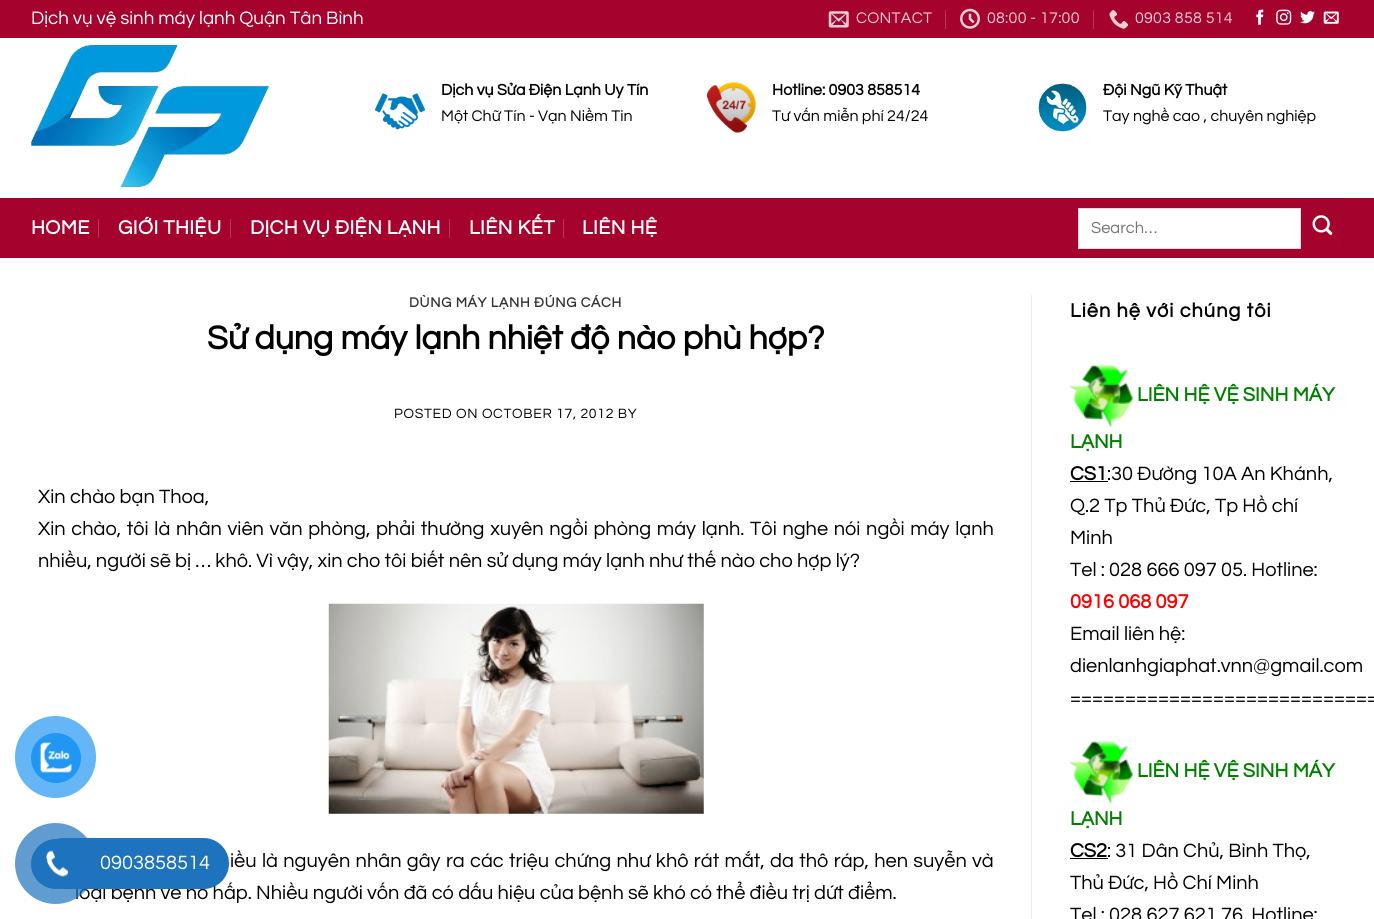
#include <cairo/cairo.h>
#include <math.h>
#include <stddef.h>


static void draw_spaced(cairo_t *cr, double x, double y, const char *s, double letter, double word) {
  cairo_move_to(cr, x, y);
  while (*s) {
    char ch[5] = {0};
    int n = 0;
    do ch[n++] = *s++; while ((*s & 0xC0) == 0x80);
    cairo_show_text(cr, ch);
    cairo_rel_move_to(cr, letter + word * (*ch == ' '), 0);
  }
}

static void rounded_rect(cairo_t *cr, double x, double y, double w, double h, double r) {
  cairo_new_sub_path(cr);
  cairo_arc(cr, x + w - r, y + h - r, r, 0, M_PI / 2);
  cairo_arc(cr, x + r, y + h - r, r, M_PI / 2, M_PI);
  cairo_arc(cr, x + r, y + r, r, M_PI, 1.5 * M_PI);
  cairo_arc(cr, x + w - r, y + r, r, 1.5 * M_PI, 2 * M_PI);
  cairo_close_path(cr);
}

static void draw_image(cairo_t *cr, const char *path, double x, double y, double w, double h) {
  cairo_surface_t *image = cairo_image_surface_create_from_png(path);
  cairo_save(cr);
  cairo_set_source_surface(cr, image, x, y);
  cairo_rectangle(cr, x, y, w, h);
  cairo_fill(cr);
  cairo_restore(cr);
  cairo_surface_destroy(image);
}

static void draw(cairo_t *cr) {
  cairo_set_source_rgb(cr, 1, 1, 1);
  cairo_paint(cr);
  cairo_set_source_rgb(cr, 165 / 255.0, 3 / 255.0, 46 / 255.0);
  cairo_rectangle(cr, 0, 0, 1374, 38);
  cairo_fill(cr);
  draw_image(cr, "images/1.png", 828, 11, 21, 17);
  cairo_set_source_rgb(cr, 183 / 255.0, 53 / 255.0, 88 / 255.0);
  cairo_rectangle(cr, 945, 10, 1, 19);
  cairo_fill(cr);
  draw_image(cr, "images/2.png", 960, 8, 20, 21);
  cairo_rectangle(cr, 1093, 10, 1, 19);
  cairo_fill(cr);
  draw_image(cr, "images/3.png", 1109, 10, 20, 19);
  draw_image(cr, "images/4.png", 1256, 9, 8, 16);
  draw_image(cr, "images/5.png", 1276, 9, 16, 16);
  draw_image(cr, "images/6.png", 1300, 11, 15, 13);
  draw_image(cr, "images/7.png", 1323, 11, 16, 13);
  draw_image(cr, "images/8.png", 31, 44, 239, 144);
  draw_image(cr, "images/9.png", 375, 93, 50, 37);
  draw_image(cr, "images/10.png", 706, 82, 50, 51);
  draw_image(cr, "images/11.png", 1038, 83, 49, 49);
  cairo_set_source_rgb(cr, 165 / 255.0, 3 / 255.0, 46 / 255.0);
  cairo_rectangle(cr, 0, 198, 1374, 60);
  cairo_fill(cr);
  cairo_set_source_rgb(cr, 149 / 255.0, 3 / 255.0, 41 / 255.0);
  cairo_rectangle(cr, 31, 198, 1313, 1);
  cairo_fill(cr);
  cairo_set_source_rgb(cr, 183 / 255.0, 53 / 255.0, 88 / 255.0);
  cairo_rectangle(cr, 98, 219, 1, 19);
  cairo_fill(cr);
  cairo_rectangle(cr, 230, 219, 1, 19);
  cairo_fill(cr);
  cairo_rectangle(cr, 449, 219, 1, 19);
  cairo_fill(cr);
  cairo_rectangle(cr, 563, 219, 1, 19);
  cairo_fill(cr);
  cairo_set_source_rgb(cr, 1, 1, 1);
  cairo_rectangle(cr, 1078.5, 208.5, 222, 40);
  cairo_fill_preserve(cr);
  cairo_set_source_rgb(cr, 221 / 255.0, 221 / 255.0, 221 / 255.0);
  cairo_set_line_width(cr, 1);
  cairo_stroke(cr);
  cairo_rectangle(cr, 1301.5, 208.5, 42, 40);
  cairo_set_source_rgb(cr, 157 / 255.0, 3 / 255.0, 44 / 255.0);
  cairo_stroke(cr);
  draw_image(cr, "images/12.png", 1312, 215, 21, 20);
  draw_image(cr, "images/13.png", 328, 603, 376, 211);
  cairo_set_source_rgb(cr, 236 / 255.0, 236 / 255.0, 236 / 255.0);
  cairo_rectangle(cr, 1031, 295, 1, 624);
  cairo_fill(cr);
  draw_image(cr, "images/14.png", 1070, 365, 63, 63);
  cairo_set_source_rgb(cr, 0, 0, 0);
  cairo_rectangle(cr, 1070, 481, 38, 1);
  cairo_fill(cr);
  draw_image(cr, "images/15.png", 1070, 741, 63, 63);
  cairo_rectangle(cr, 1070, 858, 38, 1);
  cairo_fill(cr);
  cairo_set_source_rgb(cr, 100 / 255.0, 182 / 255.0, 247 / 255.0);
  rounded_rect(cr, 15, 716, 81, 82, 40.5);
  cairo_fill(cr);
  cairo_set_source_rgb(cr, 33 / 255.0, 150 / 255.0, 243 / 255.0);
  cairo_arc(cr, 56, 758, 25, 0, 2 * M_PI);
  cairo_fill(cr);
  draw_image(cr, "images/16.png", 39, 742, 33, 31);
  cairo_select_font_face(cr, "Questrial", CAIRO_FONT_SLANT_NORMAL, CAIRO_FONT_WEIGHT_NORMAL);
  cairo_set_font_size(cr, 18.75);
  cairo_set_source_rgb(cr, 1, 1, 1);
  cairo_move_to(cr, 31, 24);
  cairo_show_text(cr, "Dịch vụ vệ sinh máy lạnh Quận Tân Bình");
  cairo_set_font_size(cr, 16);
  cairo_set_source_rgb(cr, 237 / 255.0, 205 / 255.0, 213 / 255.0);
  draw_spaced(cr, 856, 23, "CONTACT", 0.25, 0);
  draw_spaced(cr, 987, 23, "08:00 - 17:00", 0.25, 0);
  draw_spaced(cr, 1135, 23, "0903 858 514", 0.25, 0);
  cairo_select_font_face(cr, "Questrial", CAIRO_FONT_SLANT_NORMAL, CAIRO_FONT_WEIGHT_BOLD);
  cairo_set_source_rgb(cr, 0, 0, 0);
  cairo_move_to(cr, 441, 95);
  cairo_show_text(cr, "Dịch vụ Sửa Điện Lạnh Uy Tín");
  cairo_select_font_face(cr, "Questrial", CAIRO_FONT_SLANT_NORMAL, CAIRO_FONT_WEIGHT_NORMAL);
  cairo_move_to(cr, 441, 121);
  cairo_show_text(cr, "Một Chữ Tín - Vạn Niềm Tin");
  cairo_select_font_face(cr, "Questrial", CAIRO_FONT_SLANT_NORMAL, CAIRO_FONT_WEIGHT_BOLD);
  cairo_move_to(cr, 772, 95);
  cairo_show_text(cr, "Hotline: 0903 858514");
  cairo_select_font_face(cr, "Questrial", CAIRO_FONT_SLANT_NORMAL, CAIRO_FONT_WEIGHT_NORMAL);
  cairo_move_to(cr, 772, 121);
  cairo_show_text(cr, "Tư vấn miễn phí 24/24");
  cairo_select_font_face(cr, "Questrial", CAIRO_FONT_SLANT_NORMAL, CAIRO_FONT_WEIGHT_BOLD);
  cairo_move_to(cr, 1103, 95);
  cairo_show_text(cr, "Đội Ngũ Kỹ Thuật");
  cairo_select_font_face(cr, "Questrial", CAIRO_FONT_SLANT_NORMAL, CAIRO_FONT_WEIGHT_NORMAL);
  cairo_move_to(cr, 1103, 121);
  cairo_show_text(cr, "Tay nghề cao , chuyên nghiệp");
  cairo_select_font_face(cr, "Questrial", CAIRO_FONT_SLANT_NORMAL, CAIRO_FONT_WEIGHT_BOLD);
  cairo_set_font_size(cr, 20);
  cairo_set_source_rgb(cr, 1, 1, 1);
  draw_spaced(cr, 31, 234, "HOME", 0.4, 0);
  draw_spaced(cr, 118, 234, "GIỚI THIỆU", 0.4, 0);
  draw_spaced(cr, 250, 234, "DỊCH VỤ ĐIỆN LẠNH", 0.4, 0);
  draw_spaced(cr, 469, 234, "LIÊN KẾT", 0.4, 0);
  draw_spaced(cr, 582, 234, "LIÊN HỆ", 0.4, 0);
  cairo_select_font_face(cr, "Questrial", CAIRO_FONT_SLANT_NORMAL, CAIRO_FONT_WEIGHT_NORMAL);
  cairo_set_font_size(cr, 16.5);
  cairo_set_source_rgb(cr, 117 / 255.0, 117 / 255.0, 117 / 255.0);
  cairo_move_to(cr, 1091, 233);
  cairo_show_text(cr, "Search…");
  cairo_select_font_face(cr, "Questrial", CAIRO_FONT_SLANT_NORMAL, CAIRO_FONT_WEIGHT_BOLD);
  cairo_set_font_size(cr, 14);
  cairo_set_source_rgb(cr, 51 / 255.0, 51 / 255.0, 51 / 255.0);
  draw_spaced(cr, 409, 307, "DÙNG MÁY LẠNH ĐÚNG CÁCH", 0.7, 0);
  cairo_set_font_size(cr, 34);
  cairo_set_source_rgb(cr, 0, 0, 0);
  cairo_move_to(cr, 207, 349);
  cairo_show_text(cr, "Sử dụng máy lạnh nhiệt độ nào phù hợp?");
  cairo_select_font_face(cr, "Questrial", CAIRO_FONT_SLANT_NORMAL, CAIRO_FONT_WEIGHT_NORMAL);
  cairo_set_font_size(cr, 14);
  draw_spaced(cr, 394, 418, "POSTED ON OCTOBER 17, 2012 BY", 0.7, 0);
  cairo_set_font_size(cr, 20);
  cairo_move_to(cr, 38, 503);
  cairo_show_text(cr, "Xin chào bạn Thoa,");
  draw_spaced(cr, 38, 535, "Xin chào, tôi là nhân viên văn phòng, phải thường xuyên ngồi phòng máy lạnh. Tôi nghe nói ngồi máy lạnh", 0, 1.4);
  cairo_move_to(cr, 38, 567);
  cairo_show_text(cr, "nhiều, người sẽ bị … khô. Vì vậy, xin cho tôi biết nên sử dụng máy lạnh như thế nào cho hợp lý?");
  draw_spaced(cr, 230, 867, "iều là nguyên nhân gây ra các triệu chứng như khô rát mắt, da thô ráp, hen suyễn và", 0, 1.1);
  cairo_move_to(cr, 75, 899);
  cairo_show_text(cr, "loại bệnh về hô hấp. Nhiều người vốn đã có dấu hiệu của bệnh sẽ khó có thể điều trị dứt điểm.");
  cairo_select_font_face(cr, "Questrial", CAIRO_FONT_SLANT_NORMAL, CAIRO_FONT_WEIGHT_BOLD);
  draw_spaced(cr, 1070, 317, "Liên hệ với chúng tôi", 1, 0);
  cairo_set_source_rgb(cr, 0, 128 / 255.0, 0);
  cairo_move_to(cr, 1137, 401);
  cairo_show_text(cr, "LIÊN HỆ VỆ SINH MÁY");
  cairo_move_to(cr, 1070, 448);
  cairo_show_text(cr, "LẠNH");
  cairo_set_source_rgb(cr, 0, 0, 0);
  cairo_move_to(cr, 1070, 480);
  cairo_show_text(cr, "CS1");
  cairo_select_font_face(cr, "Questrial", CAIRO_FONT_SLANT_NORMAL, CAIRO_FONT_WEIGHT_NORMAL);
  cairo_move_to(cr, 1107, 480);
  cairo_show_text(cr, ":30 Đường 10A An Khánh,");
  cairo_move_to(cr, 1070, 512);
  cairo_show_text(cr, "Q.2 Tp Thủ Đức, Tp Hồ chí");
  cairo_move_to(cr, 1070, 544);
  cairo_show_text(cr, "Minh");
  cairo_move_to(cr, 1070, 576);
  cairo_show_text(cr, "Tel : 028 666 097 05. Hotline:");
  cairo_select_font_face(cr, "Questrial", CAIRO_FONT_SLANT_NORMAL, CAIRO_FONT_WEIGHT_BOLD);
  cairo_set_source_rgb(cr, 1, 0, 0);
  cairo_move_to(cr, 1070, 608);
  cairo_show_text(cr, "0916 068 097");
  cairo_select_font_face(cr, "Questrial", CAIRO_FONT_SLANT_NORMAL, CAIRO_FONT_WEIGHT_NORMAL);
  cairo_set_source_rgb(cr, 0, 0, 0);
  cairo_move_to(cr, 1070, 640);
  cairo_show_text(cr, "Email liên hệ:");
  cairo_move_to(cr, 1070, 672);
  cairo_show_text(cr, "dienlanhgiaphat.vnn@gmail.com");
  cairo_move_to(cr, 1070, 704);
  cairo_show_text(cr, "============================");
  cairo_select_font_face(cr, "Questrial", CAIRO_FONT_SLANT_NORMAL, CAIRO_FONT_WEIGHT_BOLD);
  cairo_set_source_rgb(cr, 0, 128 / 255.0, 0);
  cairo_move_to(cr, 1137, 777);
  cairo_show_text(cr, "LIÊN HỆ VỆ SINH MÁY");
  cairo_move_to(cr, 1070, 825);
  cairo_show_text(cr, "LẠNH");
  cairo_set_source_rgb(cr, 0, 0, 0);
  cairo_move_to(cr, 1070, 857);
  cairo_show_text(cr, "CS2");
  cairo_select_font_face(cr, "Questrial", CAIRO_FONT_SLANT_NORMAL, CAIRO_FONT_WEIGHT_NORMAL);
  cairo_move_to(cr, 1107, 857);
  cairo_show_text(cr, ": 31 Dân Chủ, Bình Thọ,");
  cairo_move_to(cr, 1070, 889);
  cairo_show_text(cr, "Thủ Đức, Hồ Chí Minh");
  cairo_move_to(cr, 1070, 921);
  cairo_show_text(cr, "Tel : 028 627 621 76. Hotline:");
  cairo_set_source_rgb(cr, 30 / 255.0, 115 / 255.0, 190 / 255.0);
  rounded_rect(cr, 38, 838, 191, 51, 25.5);
  cairo_fill(cr);
  cairo_set_source_rgba(cr, 30 / 255.0, 115 / 255.0, 190 / 255.0, 0.7);
  cairo_arc(cr, 55.5, 863.5, 40.5, 0, 2 * M_PI);
  cairo_fill(cr);
  cairo_set_source_rgb(cr, 30 / 255.0, 115 / 255.0, 190 / 255.0);
  cairo_arc(cr, 56, 864, 25, 0, 2 * M_PI);
  cairo_fill(cr);
  draw_image(cr, "images/17.png", 46, 850, 22, 27);
  cairo_set_source_rgb(cr, 1, 1, 1);
  cairo_move_to(cr, 100, 869);
  cairo_show_text(cr, "0903858514");
}

int main(void) {
  cairo_surface_t *surface = cairo_image_surface_create(CAIRO_FORMAT_RGB24, 1374, 919);
  cairo_t *cr = cairo_create(surface);
  cairo_font_options_t *options = cairo_font_options_create();
  cairo_font_options_set_hint_metrics(options, CAIRO_HINT_METRICS_OFF);
  cairo_font_options_set_hint_style(options, CAIRO_HINT_STYLE_NONE);
  cairo_set_font_options(cr, options);
  cairo_set_miter_limit(cr, 4);
  draw(cr);
  cairo_surface_write_to_png(surface, "out.png");
  cairo_font_options_destroy(options);
  cairo_destroy(cr);
  cairo_surface_destroy(surface);
  return 0;
}
